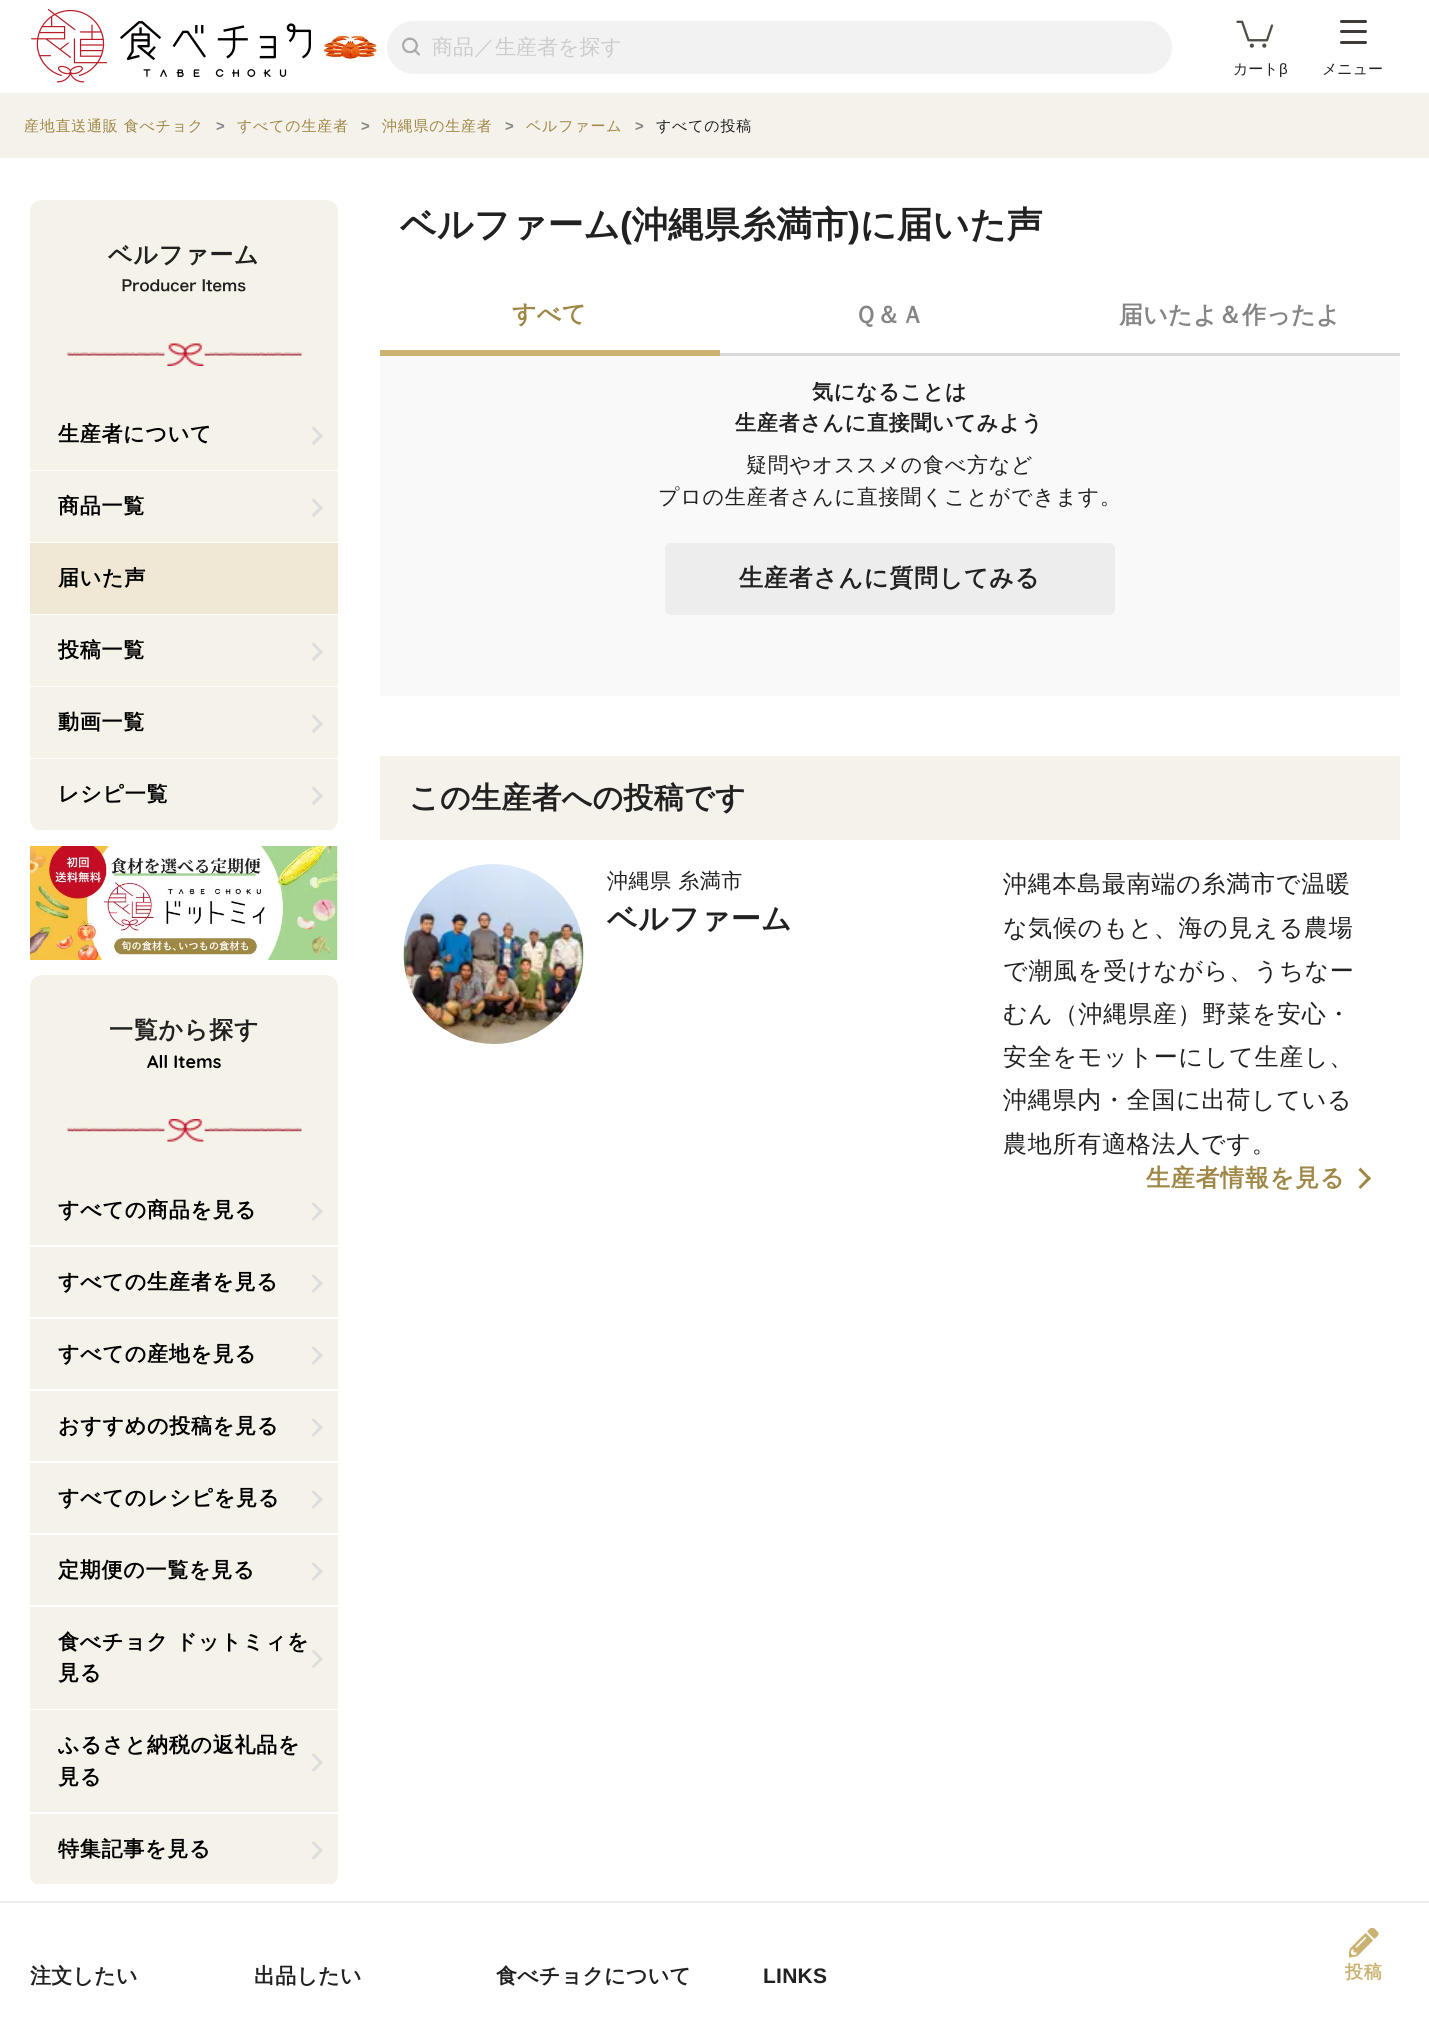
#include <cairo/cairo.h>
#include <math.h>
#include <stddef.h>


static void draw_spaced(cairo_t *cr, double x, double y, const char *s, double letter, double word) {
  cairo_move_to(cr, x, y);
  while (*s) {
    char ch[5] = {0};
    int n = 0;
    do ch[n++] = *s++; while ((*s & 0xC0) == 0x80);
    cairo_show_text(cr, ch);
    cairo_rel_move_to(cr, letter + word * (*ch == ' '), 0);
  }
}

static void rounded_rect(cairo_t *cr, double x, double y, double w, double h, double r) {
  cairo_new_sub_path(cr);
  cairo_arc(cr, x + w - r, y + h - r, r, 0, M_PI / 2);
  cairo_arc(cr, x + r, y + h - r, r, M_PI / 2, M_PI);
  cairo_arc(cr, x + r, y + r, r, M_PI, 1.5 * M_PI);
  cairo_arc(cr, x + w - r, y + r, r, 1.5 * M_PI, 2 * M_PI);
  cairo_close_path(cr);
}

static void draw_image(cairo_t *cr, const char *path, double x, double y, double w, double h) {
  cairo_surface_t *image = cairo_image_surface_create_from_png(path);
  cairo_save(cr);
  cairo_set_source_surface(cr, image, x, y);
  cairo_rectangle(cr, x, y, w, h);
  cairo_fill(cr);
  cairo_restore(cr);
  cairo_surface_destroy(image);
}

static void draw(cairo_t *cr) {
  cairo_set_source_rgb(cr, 1, 1, 1);
  cairo_paint(cr);
  cairo_set_source_rgb(cr, 242 / 255.0, 242 / 255.0, 242 / 255.0);
  cairo_rectangle(cr, 0, 93, 1429, 2);
  cairo_fill(cr);
  draw_image(cr, "images/1.png", 31, 9, 280, 74);
  draw_image(cr, "images/2.png", 324, 33, 53, 28);
  rounded_rect(cr, 387, 21, 785, 53, 26.5);
  cairo_fill(cr);
  draw_image(cr, "images/3.png", 402, 37, 18, 19);
  draw_image(cr, "images/4.png", 1236, 20, 38, 28);
  cairo_set_source_rgb(cr, 64 / 255.0, 58 / 255.0, 57 / 255.0);
  rounded_rect(cr, 1340, 20, 27, 3, 1.5);
  cairo_fill(cr);
  rounded_rect(cr, 1340, 30, 27, 3, 1.5);
  cairo_fill(cr);
  rounded_rect(cr, 1340, 41, 27, 3, 1.5);
  cairo_fill(cr);
  cairo_set_source_rgb(cr, 245 / 255.0, 241 / 255.0, 235 / 255.0);
  cairo_rectangle(cr, 0, 95, 1429, 63);
  cairo_fill(cr);
  cairo_set_source_rgb(cr, 245 / 255.0, 243 / 255.0, 233 / 255.0);
  rounded_rect(cr, 30, 200, 308, 631, 12);
  cairo_fill(cr);
  draw_image(cr, "images/5.png", 122, 279, 124, 13);
  draw_image(cr, "images/6.png", 67, 343, 235, 23);
  cairo_set_source_rgb(cr, 1, 1, 1);
  cairo_rectangle(cr, 30, 470, 308, 1);
  cairo_fill(cr);
  cairo_set_source_rgb(cr, 221 / 255.0, 221 / 255.0, 221 / 255.0);
  cairo_new_path(cr);
  cairo_move_to(cr, 313.5, 426);
  cairo_line_to(cr, 323, 436);
  cairo_line_to(cr, 321, 438);
  cairo_line_to(cr, 311.5, 428.5);
  cairo_close_path(cr);
  cairo_fill(cr);
  cairo_new_path(cr);
  cairo_move_to(cr, 321, 433.5);
  cairo_line_to(cr, 323, 436);
  cairo_line_to(cr, 313.5, 445.5);
  cairo_line_to(cr, 311.5, 443);
  cairo_close_path(cr);
  cairo_fill(cr);
  cairo_set_source_rgb(cr, 1, 1, 1);
  cairo_rectangle(cr, 30, 542, 308, 1);
  cairo_fill(cr);
  cairo_set_source_rgb(cr, 221 / 255.0, 221 / 255.0, 221 / 255.0);
  cairo_new_path(cr);
  cairo_move_to(cr, 313.5, 498);
  cairo_line_to(cr, 323, 508);
  cairo_line_to(cr, 321, 510);
  cairo_line_to(cr, 311.5, 500.5);
  cairo_close_path(cr);
  cairo_fill(cr);
  cairo_new_path(cr);
  cairo_move_to(cr, 321, 505.5);
  cairo_line_to(cr, 323, 508);
  cairo_line_to(cr, 313.5, 517.5);
  cairo_line_to(cr, 311.5, 515);
  cairo_close_path(cr);
  cairo_fill(cr);
  cairo_set_source_rgb(cr, 1, 1, 1);
  cairo_rectangle(cr, 30, 614, 308, 1);
  cairo_fill(cr);
  cairo_set_source_rgb(cr, 240 / 255.0, 232 / 255.0, 213 / 255.0);
  cairo_rectangle(cr, 30, 543, 308, 71);
  cairo_fill(cr);
  cairo_set_source_rgb(cr, 1, 1, 1);
  cairo_rectangle(cr, 30, 686, 308, 1);
  cairo_fill(cr);
  cairo_set_source_rgb(cr, 221 / 255.0, 221 / 255.0, 221 / 255.0);
  cairo_new_path(cr);
  cairo_move_to(cr, 313.5, 642);
  cairo_line_to(cr, 323, 652);
  cairo_line_to(cr, 321, 654);
  cairo_line_to(cr, 311.5, 644.5);
  cairo_close_path(cr);
  cairo_fill(cr);
  cairo_new_path(cr);
  cairo_move_to(cr, 321, 649.5);
  cairo_line_to(cr, 323, 652);
  cairo_line_to(cr, 313.5, 661.5);
  cairo_line_to(cr, 311.5, 659);
  cairo_close_path(cr);
  cairo_fill(cr);
  cairo_set_source_rgb(cr, 1, 1, 1);
  cairo_rectangle(cr, 30, 758, 308, 1);
  cairo_fill(cr);
  cairo_set_source_rgb(cr, 221 / 255.0, 221 / 255.0, 221 / 255.0);
  cairo_new_path(cr);
  cairo_move_to(cr, 313.5, 714);
  cairo_line_to(cr, 323, 724);
  cairo_line_to(cr, 321, 726);
  cairo_line_to(cr, 311.5, 716.5);
  cairo_close_path(cr);
  cairo_fill(cr);
  cairo_new_path(cr);
  cairo_move_to(cr, 321, 721.5);
  cairo_line_to(cr, 323, 724);
  cairo_line_to(cr, 313.5, 733.5);
  cairo_line_to(cr, 311.5, 731);
  cairo_close_path(cr);
  cairo_fill(cr);
  cairo_save(cr);
  rounded_rect(cr, 30, 200, 308, 631, 12);
  cairo_clip(cr);
  cairo_set_source_rgb(cr, 1, 1, 1);
  cairo_rectangle(cr, 30, 830, 308, 1);
  cairo_fill(cr);
  cairo_set_source_rgb(cr, 245 / 255.0, 243 / 255.0, 233 / 255.0);
  cairo_rectangle(cr, 30, 759, 308, 71);
  cairo_fill(cr);
  cairo_restore(cr);
  cairo_new_path(cr);
  cairo_move_to(cr, 313.5, 786);
  cairo_line_to(cr, 323, 796);
  cairo_line_to(cr, 321, 798);
  cairo_line_to(cr, 311.5, 788.5);
  cairo_close_path(cr);
  cairo_fill(cr);
  cairo_new_path(cr);
  cairo_move_to(cr, 321, 793.5);
  cairo_line_to(cr, 323, 796);
  cairo_line_to(cr, 313.5, 805.5);
  cairo_line_to(cr, 311.5, 803);
  cairo_close_path(cr);
  cairo_fill(cr);
  draw_image(cr, "images/7.png", 30, 846, 308, 114);
  cairo_set_source_rgb(cr, 245 / 255.0, 243 / 255.0, 233 / 255.0);
  rounded_rect(cr, 30, 975, 308, 911, 12);
  cairo_fill(cr);
  draw_image(cr, "images/8.png", 147, 1055, 74, 14);
  draw_image(cr, "images/9.png", 67, 1119, 235, 23);
  cairo_set_source_rgb(cr, 1, 1, 1);
  cairo_rectangle(cr, 30, 1245, 308, 2);
  cairo_fill(cr);
  cairo_set_source_rgb(cr, 221 / 255.0, 221 / 255.0, 221 / 255.0);
  cairo_new_path(cr);
  cairo_move_to(cr, 313.5, 1202);
  cairo_line_to(cr, 323, 1211.5);
  cairo_line_to(cr, 321, 1213.5);
  cairo_line_to(cr, 311.5, 1204);
  cairo_close_path(cr);
  cairo_fill(cr);
  cairo_new_path(cr);
  cairo_move_to(cr, 321, 1209);
  cairo_line_to(cr, 323, 1211.5);
  cairo_line_to(cr, 313.5, 1221);
  cairo_line_to(cr, 311.5, 1219);
  cairo_close_path(cr);
  cairo_fill(cr);
  cairo_set_source_rgb(cr, 1, 1, 1);
  cairo_rectangle(cr, 30, 1317, 308, 2);
  cairo_fill(cr);
  cairo_set_source_rgb(cr, 221 / 255.0, 221 / 255.0, 221 / 255.0);
  cairo_new_path(cr);
  cairo_move_to(cr, 313.5, 1274);
  cairo_line_to(cr, 323, 1283.5);
  cairo_line_to(cr, 321, 1285.5);
  cairo_line_to(cr, 311.5, 1276);
  cairo_close_path(cr);
  cairo_fill(cr);
  cairo_new_path(cr);
  cairo_move_to(cr, 321, 1281);
  cairo_line_to(cr, 323, 1283.5);
  cairo_line_to(cr, 313.5, 1293);
  cairo_line_to(cr, 311.5, 1291);
  cairo_close_path(cr);
  cairo_fill(cr);
  cairo_set_source_rgb(cr, 1, 1, 1);
  cairo_rectangle(cr, 30, 1389, 308, 2);
  cairo_fill(cr);
  cairo_set_source_rgb(cr, 221 / 255.0, 221 / 255.0, 221 / 255.0);
  cairo_new_path(cr);
  cairo_move_to(cr, 313.5, 1346);
  cairo_line_to(cr, 323, 1355.5);
  cairo_line_to(cr, 321, 1357.5);
  cairo_line_to(cr, 311.5, 1348);
  cairo_close_path(cr);
  cairo_fill(cr);
  cairo_new_path(cr);
  cairo_move_to(cr, 321, 1353);
  cairo_line_to(cr, 323, 1355.5);
  cairo_line_to(cr, 313.5, 1365);
  cairo_line_to(cr, 311.5, 1363);
  cairo_close_path(cr);
  cairo_fill(cr);
  cairo_set_source_rgb(cr, 1, 1, 1);
  cairo_rectangle(cr, 30, 1461, 308, 2);
  cairo_fill(cr);
  cairo_set_source_rgb(cr, 221 / 255.0, 221 / 255.0, 221 / 255.0);
  cairo_new_path(cr);
  cairo_move_to(cr, 313.5, 1418);
  cairo_line_to(cr, 323, 1427.5);
  cairo_line_to(cr, 321, 1429.5);
  cairo_line_to(cr, 311.5, 1420);
  cairo_close_path(cr);
  cairo_fill(cr);
  cairo_new_path(cr);
  cairo_move_to(cr, 321, 1425);
  cairo_line_to(cr, 323, 1427.5);
  cairo_line_to(cr, 313.5, 1437);
  cairo_line_to(cr, 311.5, 1435);
  cairo_close_path(cr);
  cairo_fill(cr);
  cairo_set_source_rgb(cr, 1, 1, 1);
  cairo_rectangle(cr, 30, 1533, 308, 2);
  cairo_fill(cr);
  cairo_set_source_rgb(cr, 221 / 255.0, 221 / 255.0, 221 / 255.0);
  cairo_new_path(cr);
  cairo_move_to(cr, 313.5, 1490);
  cairo_line_to(cr, 323, 1499.5);
  cairo_line_to(cr, 321, 1501.5);
  cairo_line_to(cr, 311.5, 1492);
  cairo_close_path(cr);
  cairo_fill(cr);
  cairo_new_path(cr);
  cairo_move_to(cr, 321, 1497);
  cairo_line_to(cr, 323, 1499.5);
  cairo_line_to(cr, 313.5, 1509);
  cairo_line_to(cr, 311.5, 1507);
  cairo_close_path(cr);
  cairo_fill(cr);
  cairo_set_source_rgb(cr, 1, 1, 1);
  cairo_rectangle(cr, 30, 1605, 308, 2);
  cairo_fill(cr);
  cairo_set_source_rgb(cr, 221 / 255.0, 221 / 255.0, 221 / 255.0);
  cairo_new_path(cr);
  cairo_move_to(cr, 313.5, 1562);
  cairo_line_to(cr, 323, 1571.5);
  cairo_line_to(cr, 321, 1573.5);
  cairo_line_to(cr, 311.5, 1564);
  cairo_close_path(cr);
  cairo_fill(cr);
  cairo_new_path(cr);
  cairo_move_to(cr, 321, 1569);
  cairo_line_to(cr, 323, 1571.5);
  cairo_line_to(cr, 313.5, 1581);
  cairo_line_to(cr, 311.5, 1579);
  cairo_close_path(cr);
  cairo_fill(cr);
  cairo_set_source_rgb(cr, 1, 1, 1);
  cairo_rectangle(cr, 30, 1709, 308, 1);
  cairo_fill(cr);
  cairo_set_source_rgb(cr, 221 / 255.0, 221 / 255.0, 221 / 255.0);
  cairo_new_path(cr);
  cairo_move_to(cr, 313.5, 1649.5);
  cairo_line_to(cr, 323, 1659);
  cairo_line_to(cr, 321, 1661);
  cairo_line_to(cr, 311.5, 1651.5);
  cairo_close_path(cr);
  cairo_fill(cr);
  cairo_new_path(cr);
  cairo_move_to(cr, 321, 1657);
  cairo_line_to(cr, 323, 1659);
  cairo_line_to(cr, 313.5, 1668.5);
  cairo_line_to(cr, 311.5, 1666.5);
  cairo_close_path(cr);
  cairo_fill(cr);
  cairo_set_source_rgb(cr, 1, 1, 1);
  cairo_rectangle(cr, 30, 1812, 308, 2);
  cairo_fill(cr);
  cairo_set_source_rgb(cr, 221 / 255.0, 221 / 255.0, 221 / 255.0);
  cairo_new_path(cr);
  cairo_move_to(cr, 313.5, 1753);
  cairo_line_to(cr, 323, 1762.5);
  cairo_line_to(cr, 321, 1764.5);
  cairo_line_to(cr, 311.5, 1755);
  cairo_close_path(cr);
  cairo_fill(cr);
  cairo_new_path(cr);
  cairo_move_to(cr, 321, 1760.5);
  cairo_line_to(cr, 323, 1762.5);
  cairo_line_to(cr, 313.5, 1772);
  cairo_line_to(cr, 311.5, 1770);
  cairo_close_path(cr);
  cairo_fill(cr);
  cairo_save(cr);
  rounded_rect(cr, 30, 975, 308, 911, 12);
  cairo_clip(cr);
  cairo_set_source_rgb(cr, 1, 1, 1);
  cairo_rectangle(cr, 30, 1884, 308, 2);
  cairo_fill(cr);
  cairo_set_source_rgb(cr, 245 / 255.0, 243 / 255.0, 233 / 255.0);
  cairo_rectangle(cr, 30, 1814, 308, 70);
  cairo_fill(cr);
  cairo_restore(cr);
  cairo_new_path(cr);
  cairo_move_to(cr, 313.5, 1841);
  cairo_line_to(cr, 323, 1850.5);
  cairo_line_to(cr, 321, 1852.5);
  cairo_line_to(cr, 311.5, 1843);
  cairo_close_path(cr);
  cairo_fill(cr);
  cairo_new_path(cr);
  cairo_move_to(cr, 321, 1848);
  cairo_line_to(cr, 323, 1850.5);
  cairo_line_to(cr, 313.5, 1860);
  cairo_line_to(cr, 311.5, 1858);
  cairo_close_path(cr);
  cairo_fill(cr);
  cairo_set_source_rgb(cr, 249 / 255.0, 249 / 255.0, 249 / 255.0);
  cairo_rectangle(cr, 380, 356, 1020, 340);
  cairo_fill(cr);
  cairo_set_source_rgb(cr, 202 / 255.0, 178 / 255.0, 112 / 255.0);
  cairo_rectangle(cr, 380, 350, 340, 6);
  cairo_fill(cr);
  cairo_set_source_rgb(cr, 217 / 255.0, 217 / 255.0, 217 / 255.0);
  cairo_rectangle(cr, 720, 353, 680, 3);
  cairo_fill(cr);
  cairo_set_source_rgb(cr, 237 / 255.0, 237 / 255.0, 237 / 255.0);
  rounded_rect(cr, 665, 543, 450, 72, 6);
  cairo_fill(cr);
  draw_image(cr, "images/10.png", 1349, 1928, 30, 30);
  cairo_set_source_rgb(cr, 245 / 255.0, 241 / 255.0, 235 / 255.0);
  cairo_rectangle(cr, 380, 756, 1020, 84);
  cairo_fill(cr);
  draw_image(cr, "images/11.png", 403, 864, 181, 180);
  cairo_set_source_rgb(cr, 159 / 255.0, 135 / 255.0, 69 / 255.0);
  cairo_new_path(cr);
  cairo_move_to(cr, 1360.5, 1167.5);
  cairo_line_to(cr, 1371, 1178.5);
  cairo_line_to(cr, 1369, 1180.5);
  cairo_line_to(cr, 1358.5, 1170);
  cairo_close_path(cr);
  cairo_fill(cr);
  cairo_new_path(cr);
  cairo_move_to(cr, 1369, 1176);
  cairo_line_to(cr, 1371, 1178.5);
  cairo_line_to(cr, 1360.5, 1189);
  cairo_line_to(cr, 1358.5, 1187);
  cairo_close_path(cr);
  cairo_fill(cr);
  cairo_set_source_rgb(cr, 237 / 255.0, 237 / 255.0, 237 / 255.0);
  cairo_rectangle(cr, 0, 1901, 1429, 2);
  cairo_fill(cr);
  cairo_select_font_face(cr, "WenQuanYi Zen Hei Medium", CAIRO_FONT_SLANT_NORMAL, CAIRO_FONT_WEIGHT_NORMAL);
  cairo_set_font_size(cr, 21);
  cairo_set_source_rgb(cr, 204 / 255.0, 204 / 255.0, 204 / 255.0);
  cairo_move_to(cr, 432, 54);
  cairo_show_text(cr, "商品／生産者を探す");
  cairo_set_font_size(cr, 15);
  cairo_set_source_rgb(cr, 33 / 255.0, 33 / 255.0, 33 / 255.0);
  cairo_move_to(cr, 1233, 74);
  cairo_show_text(cr, "カート");
  cairo_select_font_face(cr, "Liberation Sans", CAIRO_FONT_SLANT_NORMAL, CAIRO_FONT_WEIGHT_NORMAL);
  cairo_move_to(cr, 1279, 74);
  cairo_show_text(cr, "β");
  cairo_select_font_face(cr, "WenQuanYi Zen Hei Medium", CAIRO_FONT_SLANT_NORMAL, CAIRO_FONT_WEIGHT_NORMAL);
  cairo_move_to(cr, 1322, 74);
  cairo_show_text(cr, "メニュー");
  cairo_set_source_rgb(cr, 159 / 255.0, 135 / 255.0, 69 / 255.0);
  draw_spaced(cr, 24, 131, "産地直送通販 食べチョク", 0.75, 0);
  cairo_select_font_face(cr, "Liberation Sans", CAIRO_FONT_SLANT_NORMAL, CAIRO_FONT_WEIGHT_BOLD);
  cairo_set_source_rgb(cr, 133 / 255.0, 133 / 255.0, 133 / 255.0);
  draw_spaced(cr, 216, 131, ">", 0.75, 0);
  cairo_select_font_face(cr, "WenQuanYi Zen Hei Medium", CAIRO_FONT_SLANT_NORMAL, CAIRO_FONT_WEIGHT_NORMAL);
  cairo_set_source_rgb(cr, 159 / 255.0, 135 / 255.0, 69 / 255.0);
  draw_spaced(cr, 237, 131, "すべての生産者", 0.75, 0);
  cairo_select_font_face(cr, "Liberation Sans", CAIRO_FONT_SLANT_NORMAL, CAIRO_FONT_WEIGHT_BOLD);
  cairo_set_source_rgb(cr, 133 / 255.0, 133 / 255.0, 133 / 255.0);
  draw_spaced(cr, 361, 131, ">", 0.75, 0);
  cairo_select_font_face(cr, "WenQuanYi Zen Hei Medium", CAIRO_FONT_SLANT_NORMAL, CAIRO_FONT_WEIGHT_NORMAL);
  cairo_set_source_rgb(cr, 159 / 255.0, 135 / 255.0, 69 / 255.0);
  draw_spaced(cr, 382, 131, "沖縄県の生産者", 0.75, 0);
  cairo_select_font_face(cr, "Liberation Sans", CAIRO_FONT_SLANT_NORMAL, CAIRO_FONT_WEIGHT_BOLD);
  cairo_set_source_rgb(cr, 133 / 255.0, 133 / 255.0, 133 / 255.0);
  draw_spaced(cr, 505, 131, ">", 0.75, 0);
  cairo_select_font_face(cr, "WenQuanYi Zen Hei Medium", CAIRO_FONT_SLANT_NORMAL, CAIRO_FONT_WEIGHT_NORMAL);
  cairo_set_source_rgb(cr, 159 / 255.0, 135 / 255.0, 69 / 255.0);
  draw_spaced(cr, 526, 131, "ベルファーム", 0.75, 0);
  cairo_select_font_face(cr, "Liberation Sans", CAIRO_FONT_SLANT_NORMAL, CAIRO_FONT_WEIGHT_BOLD);
  cairo_set_source_rgb(cr, 133 / 255.0, 133 / 255.0, 133 / 255.0);
  draw_spaced(cr, 635, 131, ">", 0.75, 0);
  cairo_select_font_face(cr, "WenQuanYi Zen Hei Medium", CAIRO_FONT_SLANT_NORMAL, CAIRO_FONT_WEIGHT_NORMAL);
  cairo_set_source_rgb(cr, 33 / 255.0, 33 / 255.0, 33 / 255.0);
  draw_spaced(cr, 656, 131, "すべての投稿", 0.75, 0);
  cairo_select_font_face(cr, "WenQuanYi Zen Hei", CAIRO_FONT_SLANT_NORMAL, CAIRO_FONT_WEIGHT_BOLD);
  cairo_set_font_size(cr, 24);
  draw_spaced(cr, 108, 263, "ベルファーム", 0.75, 0);
  cairo_set_font_size(cr, 21);
  cairo_set_source_rgb(cr, 0, 0, 0);
  draw_spaced(cr, 58, 441, "生産者について", 0.75, 0);
  draw_spaced(cr, 58, 513, "商品一覧", 0.75, 0);
  draw_spaced(cr, 58, 585, "届いた声", 0.75, 0);
  draw_spaced(cr, 58, 657, "投稿一覧", 0.75, 0);
  draw_spaced(cr, 58, 729, "動画一覧", 0.75, 0);
  draw_spaced(cr, 58, 801, "レシピ一覧", 0.75, 0);
  cairo_set_font_size(cr, 24);
  cairo_set_source_rgb(cr, 33 / 255.0, 33 / 255.0, 33 / 255.0);
  draw_spaced(cr, 109, 1038, "一覧から探す", 0.75, 0);
  cairo_set_font_size(cr, 21);
  cairo_set_source_rgb(cr, 0, 0, 0);
  draw_spaced(cr, 58, 1217, "すべての商品を見る", 0.75, 0);
  draw_spaced(cr, 58, 1289, "すべての生産者を見る", 0.75, 0);
  draw_spaced(cr, 58, 1361, "すべての産地を見る", 0.75, 0);
  draw_spaced(cr, 58, 1433, "おすすめの投稿を見る", 0.75, 0);
  draw_spaced(cr, 58, 1505, "すべてのレシピを見る", 0.75, 0);
  draw_spaced(cr, 58, 1577, "定期便の一覧を見る", 0.75, 0);
  draw_spaced(cr, 58, 1649, "食べチョク ドットミィを", 0.75, 0);
  draw_spaced(cr, 58, 1680, "見る", 0.75, 0);
  draw_spaced(cr, 58, 1752, "ふるさと納税の返礼品を", 0.75, 0);
  draw_spaced(cr, 58, 1784, "見る", 0.75, 0);
  draw_spaced(cr, 58, 1856, "特集記事を見る", 0.75, 0);
  cairo_set_font_size(cr, 36);
  cairo_set_source_rgb(cr, 33 / 255.0, 33 / 255.0, 33 / 255.0);
  cairo_move_to(cr, 400, 237);
  cairo_show_text(cr, "ベルファーム");
  cairo_select_font_face(cr, "Liberation Sans", CAIRO_FONT_SLANT_NORMAL, CAIRO_FONT_WEIGHT_BOLD);
  cairo_move_to(cr, 620, 237);
  cairo_show_text(cr, "(");
  cairo_select_font_face(cr, "WenQuanYi Zen Hei", CAIRO_FONT_SLANT_NORMAL, CAIRO_FONT_WEIGHT_BOLD);
  cairo_move_to(cr, 632, 237);
  cairo_show_text(cr, "沖縄県糸満市");
  cairo_select_font_face(cr, "Liberation Sans", CAIRO_FONT_SLANT_NORMAL, CAIRO_FONT_WEIGHT_BOLD);
  cairo_move_to(cr, 848, 237);
  cairo_show_text(cr, ")");
  cairo_select_font_face(cr, "WenQuanYi Zen Hei", CAIRO_FONT_SLANT_NORMAL, CAIRO_FONT_WEIGHT_BOLD);
  cairo_move_to(cr, 860, 237);
  cairo_show_text(cr, "に届いた声");
  cairo_set_font_size(cr, 24);
  cairo_set_source_rgb(cr, 159 / 255.0, 135 / 255.0, 69 / 255.0);
  draw_spaced(cr, 512, 322, "すべて", 0.25, 0);
  cairo_set_source_rgb(cr, 133 / 255.0, 133 / 255.0, 133 / 255.0);
  draw_spaced(cr, 854, 323, "Ｑ＆Ａ", 0.25, 0);
  draw_spaced(cr, 1119, 323, "届いたよ＆作ったよ", 0.25, 0);
  cairo_set_font_size(cr, 21);
  cairo_set_source_rgb(cr, 33 / 255.0, 33 / 255.0, 33 / 255.0);
  draw_spaced(cr, 812, 399, "気になることは", 0.75, 0);
  draw_spaced(cr, 735, 430, "生産者さんに直接聞いてみよう", 0.75, 0);
  cairo_select_font_face(cr, "WenQuanYi Zen Hei Medium", CAIRO_FONT_SLANT_NORMAL, CAIRO_FONT_WEIGHT_NORMAL);
  draw_spaced(cr, 746, 472, "疑問やオススメの食べ方など", 0.75, 0);
  draw_spaced(cr, 658, 504, "プロの生産者さんに直接聞くことができます。", 0.75, 0);
  cairo_select_font_face(cr, "WenQuanYi Zen Hei", CAIRO_FONT_SLANT_NORMAL, CAIRO_FONT_WEIGHT_BOLD);
  cairo_set_font_size(cr, 24);
  draw_spaced(cr, 739, 586, "生産者さんに質問してみる", 0.75, 0);
  cairo_set_font_size(cr, 18);
  cairo_set_source_rgb(cr, 202 / 255.0, 178 / 255.0, 112 / 255.0);
  draw_spaced(cr, 1345, 1978, "投稿", 0.75, 0);
  cairo_set_font_size(cr, 30);
  cairo_set_source_rgb(cr, 33 / 255.0, 33 / 255.0, 33 / 255.0);
  draw_spaced(cr, 409, 808, "この生産者への投稿です", 0.25, 0);
  cairo_select_font_face(cr, "WenQuanYi Zen Hei Medium", CAIRO_FONT_SLANT_NORMAL, CAIRO_FONT_WEIGHT_NORMAL);
  cairo_set_font_size(cr, 21);
  draw_spaced(cr, 607, 888, "沖縄県 糸満市", 0.5, 0);
  cairo_select_font_face(cr, "WenQuanYi Zen Hei", CAIRO_FONT_SLANT_NORMAL, CAIRO_FONT_WEIGHT_BOLD);
  cairo_set_font_size(cr, 30);
  draw_spaced(cr, 607, 929, "ベルファーム", 0.25, 0);
  cairo_select_font_face(cr, "WenQuanYi Zen Hei Medium", CAIRO_FONT_SLANT_NORMAL, CAIRO_FONT_WEIGHT_NORMAL);
  cairo_set_font_size(cr, 24);
  draw_spaced(cr, 1003, 892, "沖縄本島最南端の糸満市で温暖", 0.75, 0);
  draw_spaced(cr, 1003, 936, "な気候のもと、海の見える農場", 0.75, 0);
  draw_spaced(cr, 1003, 979, "で潮風を受けながら、うちなー", 0.75, 0);
  draw_spaced(cr, 1003, 1022, "むん（沖縄県産）野菜を安心・", 0.75, 0);
  draw_spaced(cr, 1003, 1065, "安全をモットーにして生産し、", 0.75, 0);
  draw_spaced(cr, 1003, 1108, "沖縄県内・全国に出荷している", 0.75, 0);
  draw_spaced(cr, 1003, 1152, "農地所有適格法人です。", 0.75, 0);
  cairo_select_font_face(cr, "WenQuanYi Zen Hei", CAIRO_FONT_SLANT_NORMAL, CAIRO_FONT_WEIGHT_BOLD);
  cairo_set_source_rgb(cr, 159 / 255.0, 135 / 255.0, 69 / 255.0);
  draw_spaced(cr, 1146, 1186, "生産者情報を見る", 0.75, 0);
  cairo_set_font_size(cr, 21);
  cairo_set_source_rgb(cr, 33 / 255.0, 33 / 255.0, 33 / 255.0);
  draw_spaced(cr, 30, 1983, "注文したい", 0.25, 0);
  draw_spaced(cr, 254, 1983, "出品したい", 0.25, 0);
  draw_spaced(cr, 496, 1983, "食べチョクについて", 0.25, 0);
  cairo_select_font_face(cr, "Liberation Sans", CAIRO_FONT_SLANT_NORMAL, CAIRO_FONT_WEIGHT_BOLD);
  draw_spaced(cr, 763, 1983, "LINKS", 0.25, 0);
}

int main(void) {
  cairo_surface_t *surface = cairo_image_surface_create(CAIRO_FORMAT_RGB24, 1429, 2022);
  cairo_t *cr = cairo_create(surface);
  cairo_font_options_t *options = cairo_font_options_create();
  cairo_font_options_set_hint_metrics(options, CAIRO_HINT_METRICS_OFF);
  cairo_font_options_set_hint_style(options, CAIRO_HINT_STYLE_NONE);
  cairo_set_font_options(cr, options);
  cairo_set_miter_limit(cr, 4);
  draw(cr);
  cairo_surface_write_to_png(surface, "out.png");
  cairo_font_options_destroy(options);
  cairo_destroy(cr);
  cairo_surface_destroy(surface);
  return 0;
}
